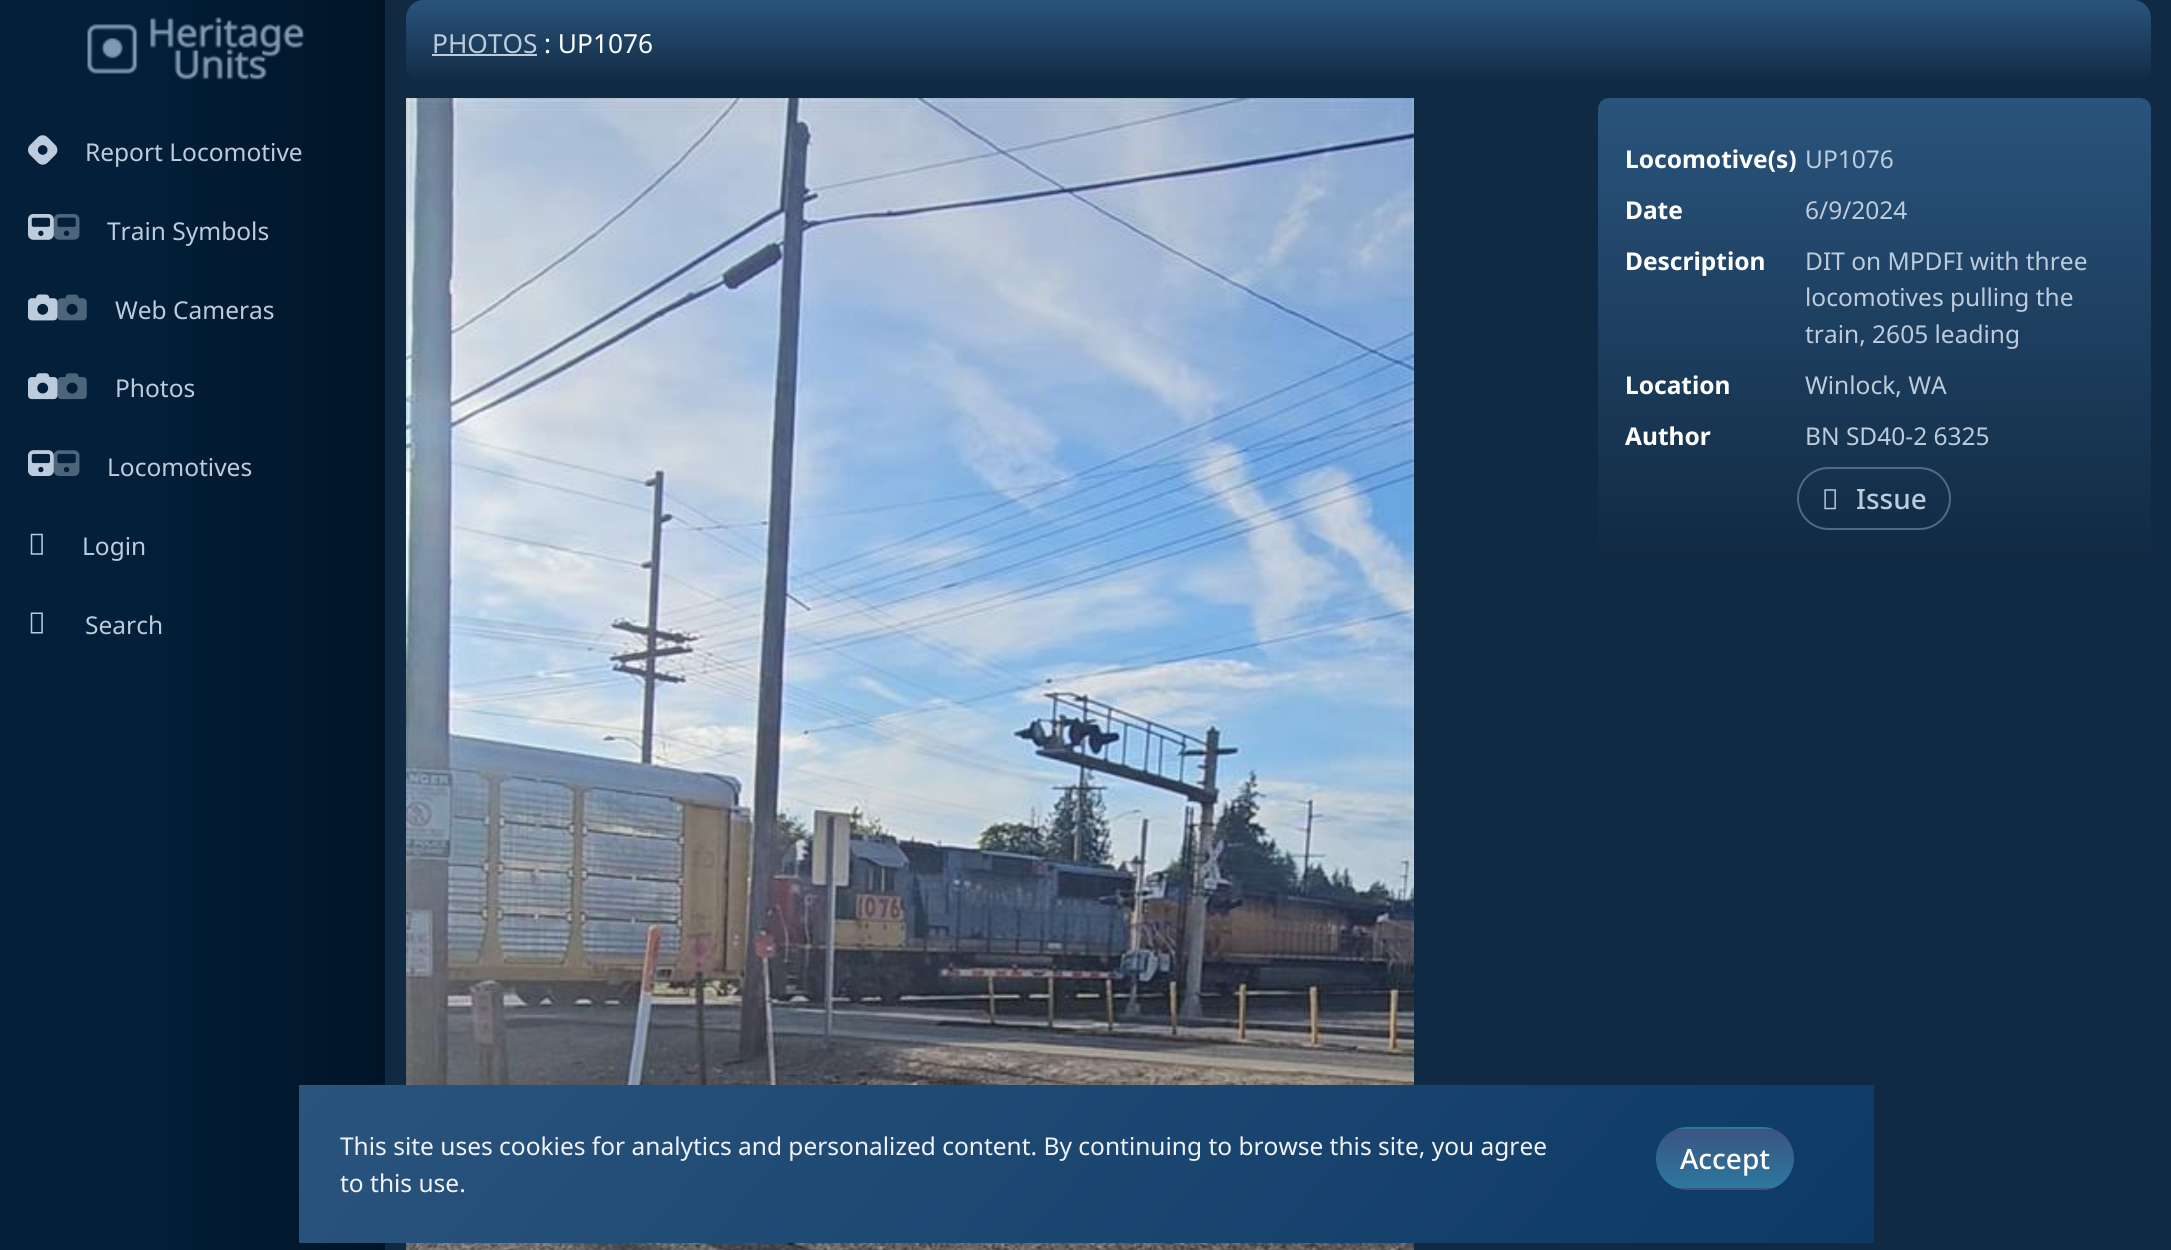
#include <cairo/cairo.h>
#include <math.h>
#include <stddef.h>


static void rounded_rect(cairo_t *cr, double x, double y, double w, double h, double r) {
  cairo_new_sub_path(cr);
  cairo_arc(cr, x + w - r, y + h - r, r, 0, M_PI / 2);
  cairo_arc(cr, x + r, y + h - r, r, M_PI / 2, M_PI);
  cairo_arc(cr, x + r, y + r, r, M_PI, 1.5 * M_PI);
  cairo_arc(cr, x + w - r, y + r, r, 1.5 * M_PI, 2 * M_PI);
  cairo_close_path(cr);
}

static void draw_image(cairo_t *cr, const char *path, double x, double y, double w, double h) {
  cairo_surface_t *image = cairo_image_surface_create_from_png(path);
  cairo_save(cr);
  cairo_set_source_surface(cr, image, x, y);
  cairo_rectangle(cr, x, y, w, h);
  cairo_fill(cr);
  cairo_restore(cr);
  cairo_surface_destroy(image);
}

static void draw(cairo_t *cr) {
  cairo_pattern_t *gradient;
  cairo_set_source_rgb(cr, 16 / 255.0, 42 / 255.0, 67 / 255.0);
  cairo_paint(cr);
  gradient = cairo_pattern_create_linear(0, 1040, 385, 1040);
  cairo_pattern_add_color_stop_rgba(gradient, 0.35, 3 / 255.0, 31 / 255.0, 57 / 255.0, 1);
  cairo_pattern_add_color_stop_rgba(gradient, 1, 0, 20 / 255.0, 39 / 255.0, 1);
  cairo_set_source(cr, gradient);
  cairo_pattern_destroy(gradient);
  cairo_rectangle(cr, 0, 0, 385, 1250);
  cairo_fill(cr);
  draw_image(cr, "images/1.png", 87, 17, 218, 63);
  draw_image(cr, "images/2.png", 28, 135, 30, 30);
  draw_image(cr, "images/3.png", 28, 214, 26, 26);
  draw_image(cr, "images/4.png", 28, 214, 52, 26);
  draw_image(cr, "images/5.png", 28, 294, 30, 27);
  draw_image(cr, "images/6.png", 28, 294, 59, 27);
  draw_image(cr, "images/7.png", 28, 373, 30, 27);
  draw_image(cr, "images/8.png", 28, 373, 59, 27);
  draw_image(cr, "images/9.png", 28, 450, 26, 26);
  draw_image(cr, "images/10.png", 28, 450, 52, 26);
  draw_image(cr, "images/11.png", 30, 533, 13, 22);
  draw_image(cr, "images/12.png", 30, 612, 13, 22);
  gradient = cairo_pattern_create_linear(1278, 0, 1278, 84);
  cairo_pattern_add_color_stop_rgba(gradient, 0, 42 / 255.0, 84 / 255.0, 125 / 255.0, 1);
  cairo_pattern_add_color_stop_rgba(gradient, 1, 17 / 255.0, 42 / 255.0, 66 / 255.0, 1);
  cairo_set_source(cr, gradient);
  cairo_pattern_destroy(gradient);
  rounded_rect(cr, 406, 0, 1745, 84, 18);
  cairo_fill(cr);
  cairo_set_source_rgb(cr, 188 / 255.0, 204 / 255.0, 220 / 255.0);
  cairo_rectangle(cr, 432, 54, 105, 2);
  cairo_fill(cr);
  draw_image(cr, "images/13.png", 406, 98, 1008, 1152);
  gradient = cairo_pattern_create_linear(1874, 98, 1874, 558);
  cairo_pattern_add_color_stop_rgba(gradient, 0, 42 / 255.0, 84 / 255.0, 125 / 255.0, 1);
  cairo_pattern_add_color_stop_rgba(gradient, 1, 17 / 255.0, 42 / 255.0, 66 / 255.0, 1);
  cairo_set_source(cr, gradient);
  cairo_pattern_destroy(gradient);
  rounded_rect(cr, 1598, 98, 553, 460, 11);
  cairo_fill(cr);
  rounded_rect(cr, 1798, 468, 152, 61, 30.5);
  cairo_set_source_rgb(cr, 79 / 255.0, 105 / 255.0, 136 / 255.0);
  cairo_stroke(cr);
  draw_image(cr, "images/14.png", 1824, 489, 12, 21);
  gradient = cairo_pattern_create_linear(599, 740, 1574, 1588);
  cairo_pattern_add_color_stop_rgba(gradient, 0, 42 / 255.0, 84 / 255.0, 125 / 255.0, 1);
  cairo_pattern_add_color_stop_rgba(gradient, 1, 12 / 255.0, 57 / 255.0, 101 / 255.0, 1);
  cairo_set_source(cr, gradient);
  cairo_pattern_destroy(gradient);
  cairo_rectangle(cr, 299, 1085, 1575, 158);
  cairo_fill(cr);
  cairo_save(cr);
  rounded_rect(cr, 1656, 1127, 138, 63, 31.5);
  cairo_clip(cr);
  gradient = cairo_pattern_create_linear(1725, 1129, 1725, 1069);
  cairo_pattern_add_color_stop_rgba(gradient, 0, 44 / 255.0, 120 / 255.0, 159 / 255.0, 1);
  cairo_pattern_add_color_stop_rgba(gradient, 1, 59 / 255.0, 84 / 255.0, 129 / 255.0, 1);
  cairo_set_source(cr, gradient);
  cairo_pattern_destroy(gradient);
  cairo_rectangle(cr, 1676, 1127, 98, 2);
  cairo_fill(cr);
  gradient = cairo_pattern_create_linear(1725, 1188, 1725, 1129);
  cairo_pattern_add_color_stop_rgba(gradient, 0, 44 / 255.0, 120 / 255.0, 159 / 255.0, 1);
  cairo_pattern_add_color_stop_rgba(gradient, 1, 59 / 255.0, 84 / 255.0, 129 / 255.0, 1);
  cairo_set_source(cr, gradient);
  cairo_pattern_destroy(gradient);
  cairo_rectangle(cr, 1656, 1129, 138, 59);
  cairo_fill(cr);
  gradient = cairo_pattern_create_linear(1725, 1248, 1725, 1188);
  cairo_pattern_add_color_stop_rgba(gradient, 0, 44 / 255.0, 120 / 255.0, 159 / 255.0, 1);
  cairo_pattern_add_color_stop_rgba(gradient, 1, 59 / 255.0, 84 / 255.0, 129 / 255.0, 1);
  cairo_set_source(cr, gradient);
  cairo_pattern_destroy(gradient);
  cairo_rectangle(cr, 1676, 1188, 98, 2);
  cairo_fill(cr);
  cairo_restore(cr);
  cairo_select_font_face(cr, "Noto Sans", CAIRO_FONT_SLANT_NORMAL, CAIRO_FONT_WEIGHT_NORMAL);
  cairo_set_font_size(cr, 24.5);
  cairo_set_source_rgb(cr, 188 / 255.0, 204 / 255.0, 220 / 255.0);
  cairo_move_to(cr, 85, 161);
  cairo_show_text(cr, "Report Locomotive");
  cairo_move_to(cr, 107, 240);
  cairo_show_text(cr, "Train Symbols");
  cairo_move_to(cr, 115, 319);
  cairo_show_text(cr, "Web Cameras");
  cairo_move_to(cr, 115, 397);
  cairo_show_text(cr, "Photos");
  cairo_move_to(cr, 107, 476);
  cairo_show_text(cr, "Locomotives");
  cairo_move_to(cr, 82, 555);
  cairo_show_text(cr, "Login");
  cairo_move_to(cr, 85, 634);
  cairo_show_text(cr, "Search");
  cairo_set_font_size(cr, 26.25);
  cairo_move_to(cr, 432, 53);
  cairo_show_text(cr, "PHOTOS");
  cairo_set_source_rgb(cr, 1, 1, 1);
  cairo_move_to(cr, 544, 53);
  cairo_show_text(cr, ": UP1076");
  cairo_select_font_face(cr, "Noto Sans", CAIRO_FONT_SLANT_NORMAL, CAIRO_FONT_WEIGHT_BOLD);
  cairo_set_font_size(cr, 24.5);
  cairo_move_to(cr, 1625, 168);
  cairo_show_text(cr, "Locomotive(s)");
  cairo_select_font_face(cr, "Noto Sans", CAIRO_FONT_SLANT_NORMAL, CAIRO_FONT_WEIGHT_NORMAL);
  cairo_set_source_rgb(cr, 188 / 255.0, 204 / 255.0, 220 / 255.0);
  cairo_move_to(cr, 1805, 168);
  cairo_show_text(cr, "UP1076");
  cairo_select_font_face(cr, "Noto Sans", CAIRO_FONT_SLANT_NORMAL, CAIRO_FONT_WEIGHT_BOLD);
  cairo_set_source_rgb(cr, 1, 1, 1);
  cairo_move_to(cr, 1625, 219);
  cairo_show_text(cr, "Date");
  cairo_select_font_face(cr, "Noto Sans", CAIRO_FONT_SLANT_NORMAL, CAIRO_FONT_WEIGHT_NORMAL);
  cairo_set_source_rgb(cr, 188 / 255.0, 204 / 255.0, 220 / 255.0);
  cairo_move_to(cr, 1805, 219);
  cairo_show_text(cr, "6/9/2024");
  cairo_select_font_face(cr, "Noto Sans", CAIRO_FONT_SLANT_NORMAL, CAIRO_FONT_WEIGHT_BOLD);
  cairo_set_source_rgb(cr, 1, 1, 1);
  cairo_move_to(cr, 1625, 270);
  cairo_show_text(cr, "Description");
  cairo_select_font_face(cr, "Noto Sans", CAIRO_FONT_SLANT_NORMAL, CAIRO_FONT_WEIGHT_NORMAL);
  cairo_set_source_rgb(cr, 188 / 255.0, 204 / 255.0, 220 / 255.0);
  cairo_move_to(cr, 1805, 270);
  cairo_show_text(cr, "DIT on MPDFI with three");
  cairo_move_to(cr, 1805, 306);
  cairo_show_text(cr, "locomotives pulling the");
  cairo_move_to(cr, 1805, 343);
  cairo_show_text(cr, "train, 2605 leading");
  cairo_select_font_face(cr, "Noto Sans", CAIRO_FONT_SLANT_NORMAL, CAIRO_FONT_WEIGHT_BOLD);
  cairo_set_source_rgb(cr, 1, 1, 1);
  cairo_move_to(cr, 1625, 394);
  cairo_show_text(cr, "Location");
  cairo_select_font_face(cr, "Noto Sans", CAIRO_FONT_SLANT_NORMAL, CAIRO_FONT_WEIGHT_NORMAL);
  cairo_set_source_rgb(cr, 188 / 255.0, 204 / 255.0, 220 / 255.0);
  cairo_move_to(cr, 1805, 394);
  cairo_show_text(cr, "Winlock, WA");
  cairo_select_font_face(cr, "Noto Sans", CAIRO_FONT_SLANT_NORMAL, CAIRO_FONT_WEIGHT_BOLD);
  cairo_set_source_rgb(cr, 1, 1, 1);
  cairo_move_to(cr, 1625, 445);
  cairo_show_text(cr, "Author");
  cairo_select_font_face(cr, "Noto Sans", CAIRO_FONT_SLANT_NORMAL, CAIRO_FONT_WEIGHT_NORMAL);
  cairo_set_source_rgb(cr, 188 / 255.0, 204 / 255.0, 220 / 255.0);
  cairo_move_to(cr, 1805, 445);
  cairo_show_text(cr, "BN SD40-2 6325");
  cairo_select_font_face(cr, "Noto Sans Medium", CAIRO_FONT_SLANT_NORMAL, CAIRO_FONT_WEIGHT_NORMAL);
  cairo_set_font_size(cr, 28);
  cairo_move_to(cr, 1856, 509);
  cairo_show_text(cr, "Issue");
  cairo_select_font_face(cr, "Noto Sans", CAIRO_FONT_SLANT_NORMAL, CAIRO_FONT_WEIGHT_NORMAL);
  cairo_set_font_size(cr, 24.5);
  cairo_set_source_rgb(cr, 240 / 255.0, 244 / 255.0, 248 / 255.0);
  cairo_move_to(cr, 340, 1155);
  cairo_show_text(cr, "This site uses cookies for analytics and personalized content. By continuing to browse this site, you agree");
  cairo_move_to(cr, 340, 1192);
  cairo_show_text(cr, "to this use.");
  cairo_select_font_face(cr, "Noto Sans Medium", CAIRO_FONT_SLANT_NORMAL, CAIRO_FONT_WEIGHT_NORMAL);
  cairo_set_font_size(cr, 28);
  cairo_set_source_rgb(cr, 1, 1, 1);
  cairo_move_to(cr, 1680, 1169);
  cairo_show_text(cr, "Accept");
}

int main(void) {
  cairo_surface_t *surface = cairo_image_surface_create(CAIRO_FORMAT_RGB24, 2171, 1250);
  cairo_t *cr = cairo_create(surface);
  cairo_font_options_t *options = cairo_font_options_create();
  cairo_font_options_set_hint_metrics(options, CAIRO_HINT_METRICS_OFF);
  cairo_font_options_set_hint_style(options, CAIRO_HINT_STYLE_NONE);
  cairo_set_font_options(cr, options);
  cairo_set_miter_limit(cr, 4);
  draw(cr);
  cairo_surface_write_to_png(surface, "out.png");
  cairo_font_options_destroy(options);
  cairo_destroy(cr);
  cairo_surface_destroy(surface);
  return 0;
}
